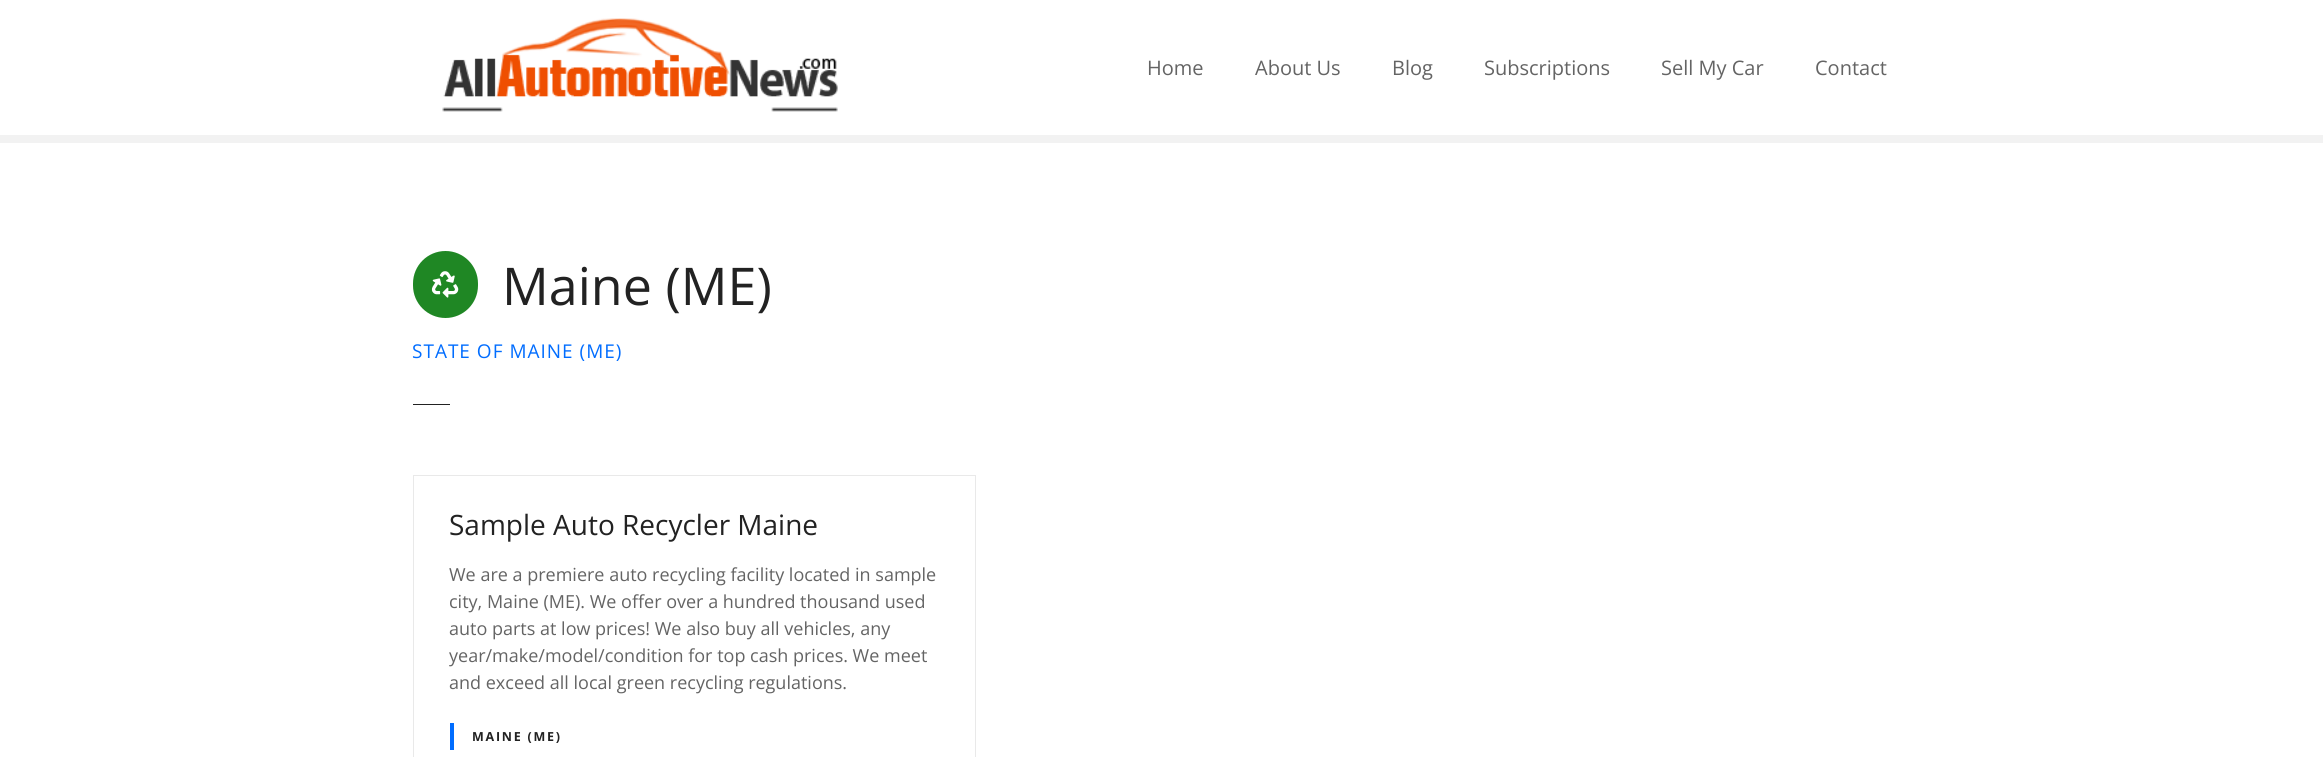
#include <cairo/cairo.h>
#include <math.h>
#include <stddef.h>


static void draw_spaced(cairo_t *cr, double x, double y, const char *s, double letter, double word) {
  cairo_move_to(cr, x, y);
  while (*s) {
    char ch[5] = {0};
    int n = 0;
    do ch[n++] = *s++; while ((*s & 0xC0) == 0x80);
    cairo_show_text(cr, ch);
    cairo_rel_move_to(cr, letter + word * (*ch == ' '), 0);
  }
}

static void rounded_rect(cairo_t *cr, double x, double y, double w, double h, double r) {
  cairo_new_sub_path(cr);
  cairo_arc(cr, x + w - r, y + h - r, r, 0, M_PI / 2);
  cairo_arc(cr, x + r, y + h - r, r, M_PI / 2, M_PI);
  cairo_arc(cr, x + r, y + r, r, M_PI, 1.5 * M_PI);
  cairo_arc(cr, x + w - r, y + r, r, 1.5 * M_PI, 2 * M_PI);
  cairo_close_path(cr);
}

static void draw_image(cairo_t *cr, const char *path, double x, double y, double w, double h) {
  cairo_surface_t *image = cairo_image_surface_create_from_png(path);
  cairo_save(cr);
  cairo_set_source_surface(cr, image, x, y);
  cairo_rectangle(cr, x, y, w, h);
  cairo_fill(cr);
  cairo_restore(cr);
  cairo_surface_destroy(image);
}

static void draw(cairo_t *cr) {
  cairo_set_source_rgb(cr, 1, 1, 1);
  cairo_paint(cr);
  draw_image(cr, "images/1.png", 442, 18, 396, 94);
  cairo_set_source_rgb(cr, 242 / 255.0, 242 / 255.0, 242 / 255.0);
  cairo_rectangle(cr, 0, 135, 2323, 8);
  cairo_fill(cr);
  cairo_set_source_rgb(cr, 31 / 255.0, 135 / 255.0, 36 / 255.0);
  rounded_rect(cr, 413, 251, 65, 67, 32.5);
  cairo_fill(cr);
  draw_image(cr, "images/2.png", 431, 271, 28, 27);
  cairo_set_source_rgb(cr, 34 / 255.0, 34 / 255.0, 34 / 255.0);
  cairo_rectangle(cr, 413, 404, 37, 1);
  cairo_fill(cr);
  cairo_rectangle(cr, 413.5, 475.5, 562, 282);
  cairo_set_source_rgb(cr, 233 / 255.0, 233 / 255.0, 233 / 255.0);
  cairo_set_line_width(cr, 1);
  cairo_stroke(cr);
  cairo_set_source_rgb(cr, 1 / 255.0, 109 / 255.0, 1);
  cairo_rectangle(cr, 450, 723, 4, 27);
  cairo_fill(cr);
  cairo_select_font_face(cr, "Open Sans", CAIRO_FONT_SLANT_NORMAL, CAIRO_FONT_WEIGHT_NORMAL);
  cairo_set_font_size(cr, 20);
  cairo_set_source_rgb(cr, 100 / 255.0, 100 / 255.0, 100 / 255.0);
  cairo_move_to(cr, 1147, 75);
  cairo_show_text(cr, "Home");
  cairo_move_to(cr, 1255, 75);
  cairo_show_text(cr, "About Us");
  cairo_move_to(cr, 1392, 75);
  cairo_show_text(cr, "Blog");
  cairo_move_to(cr, 1484, 75);
  cairo_show_text(cr, "Subscriptions");
  cairo_move_to(cr, 1661, 75);
  cairo_show_text(cr, "Sell My Car");
  cairo_move_to(cr, 1815, 75);
  cairo_show_text(cr, "Contact");
  cairo_set_font_size(cr, 52);
  cairo_set_source_rgb(cr, 34 / 255.0, 34 / 255.0, 34 / 255.0);
  cairo_move_to(cr, 502, 305);
  cairo_show_text(cr, "Maine (ME)");
  cairo_set_font_size(cr, 19);
  cairo_set_source_rgb(cr, 1 / 255.0, 109 / 255.0, 1);
  draw_spaced(cr, 412, 358, "STATE OF MAINE (ME)", 1, 0);
  cairo_set_font_size(cr, 28);
  cairo_set_source_rgb(cr, 34 / 255.0, 34 / 255.0, 34 / 255.0);
  cairo_move_to(cr, 449, 535);
  cairo_show_text(cr, "Sample Auto Recycler Maine");
  cairo_set_font_size(cr, 18);
  cairo_set_source_rgb(cr, 100 / 255.0, 100 / 255.0, 100 / 255.0);
  cairo_move_to(cr, 449, 581);
  cairo_show_text(cr, "We are a premiere auto recycling facility located in sample");
  cairo_move_to(cr, 449, 608);
  cairo_show_text(cr, "city, Maine (ME). We offer over a hundred thousand used");
  cairo_move_to(cr, 449, 635);
  cairo_show_text(cr, "auto parts at low prices! We also buy all vehicles, any");
  cairo_move_to(cr, 449, 662);
  cairo_show_text(cr, "year/make/model/condition for top cash prices. We meet");
  cairo_move_to(cr, 449, 689);
  cairo_show_text(cr, "and exceed all local green recycling regulations.");
  cairo_select_font_face(cr, "Open Sans", CAIRO_FONT_SLANT_NORMAL, CAIRO_FONT_WEIGHT_BOLD);
  cairo_set_font_size(cr, 12.5);
  cairo_set_source_rgb(cr, 34 / 255.0, 34 / 255.0, 34 / 255.0);
  draw_spaced(cr, 472, 741, "MAINE (ME)", 1.75, 0);
}

int main(void) {
  cairo_surface_t *surface = cairo_image_surface_create(CAIRO_FORMAT_RGB24, 2323, 757);
  cairo_t *cr = cairo_create(surface);
  cairo_font_options_t *options = cairo_font_options_create();
  cairo_font_options_set_hint_metrics(options, CAIRO_HINT_METRICS_OFF);
  cairo_font_options_set_hint_style(options, CAIRO_HINT_STYLE_NONE);
  cairo_set_font_options(cr, options);
  cairo_set_miter_limit(cr, 4);
  draw(cr);
  cairo_surface_write_to_png(surface, "out.png");
  cairo_font_options_destroy(options);
  cairo_destroy(cr);
  cairo_surface_destroy(surface);
  return 0;
}
